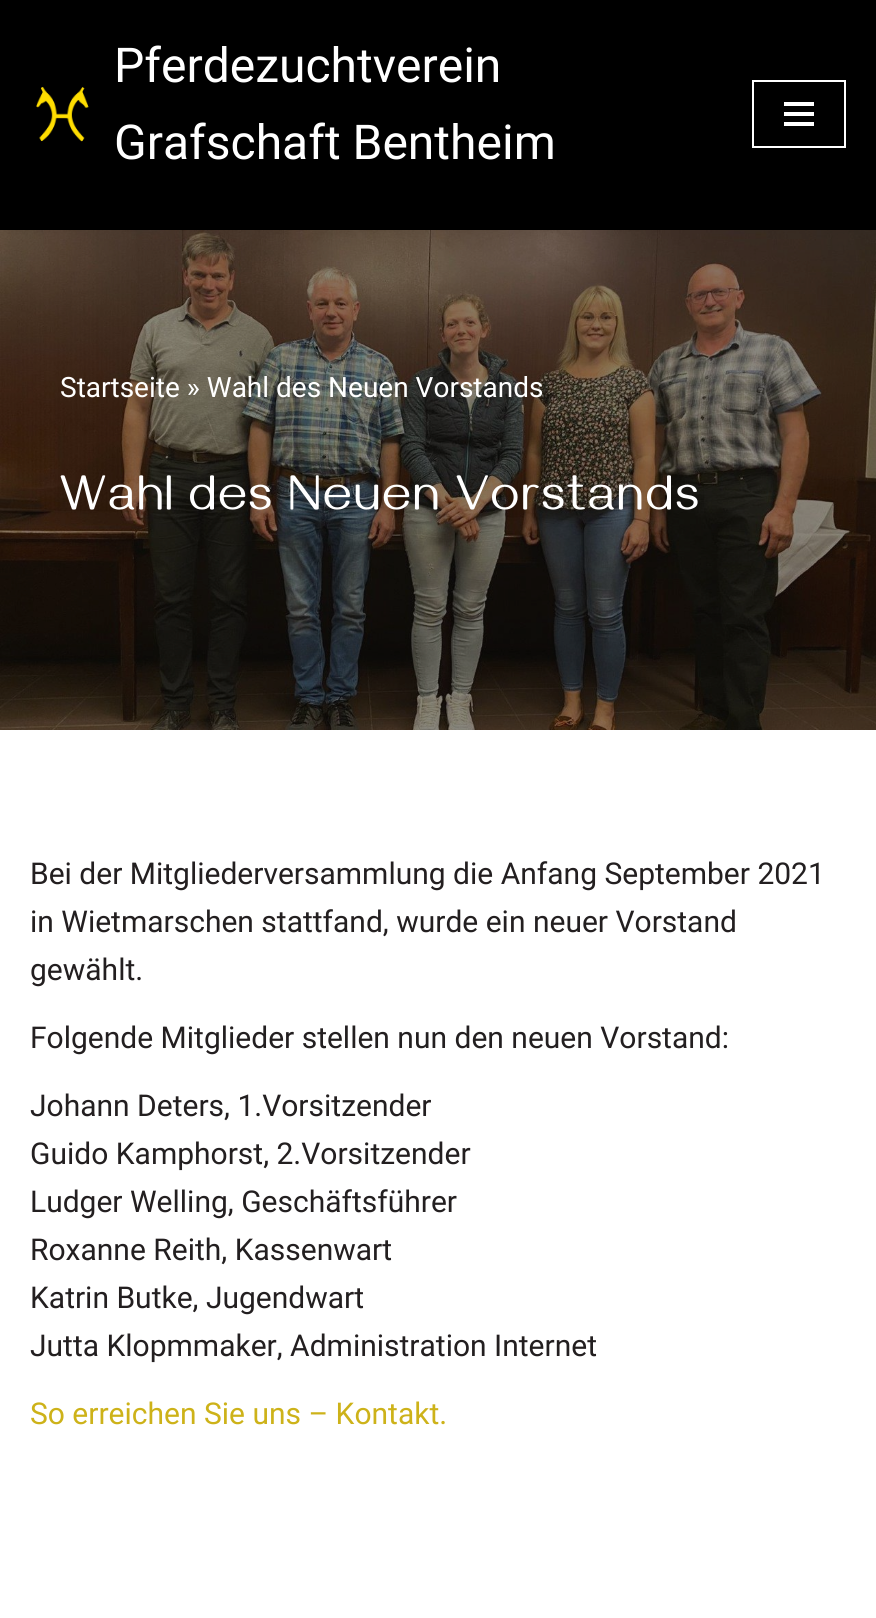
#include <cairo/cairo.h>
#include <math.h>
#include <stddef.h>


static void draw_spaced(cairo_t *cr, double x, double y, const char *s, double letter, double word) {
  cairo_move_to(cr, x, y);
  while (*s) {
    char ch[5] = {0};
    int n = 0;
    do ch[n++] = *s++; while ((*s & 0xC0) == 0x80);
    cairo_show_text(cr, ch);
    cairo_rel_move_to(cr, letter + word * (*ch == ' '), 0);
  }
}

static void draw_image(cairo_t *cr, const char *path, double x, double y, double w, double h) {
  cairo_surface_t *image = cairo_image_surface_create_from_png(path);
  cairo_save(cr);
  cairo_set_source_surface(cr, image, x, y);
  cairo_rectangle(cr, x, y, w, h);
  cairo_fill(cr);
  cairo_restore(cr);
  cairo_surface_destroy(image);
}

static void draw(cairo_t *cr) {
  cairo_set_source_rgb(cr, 1, 1, 1);
  cairo_paint(cr);
  cairo_set_source_rgb(cr, 0, 0, 0);
  cairo_rectangle(cr, 0, 0, 876, 230);
  cairo_fill(cr);
  draw_image(cr, "images/1.png", 36, 87, 53, 55);
  cairo_rectangle(cr, 753, 81, 92, 66);
  cairo_set_source_rgb(cr, 1, 1, 1);
  cairo_stroke(cr);
  cairo_rectangle(cr, 784, 102, 30, 4);
  cairo_fill(cr);
  cairo_rectangle(cr, 784, 112, 30, 4);
  cairo_fill(cr);
  cairo_rectangle(cr, 784, 122, 30, 4);
  cairo_fill(cr);
  draw_image(cr, "images/2.png", 0, 230, 876, 500);
  cairo_select_font_face(cr, "Roboto", CAIRO_FONT_SLANT_NORMAL, CAIRO_FONT_WEIGHT_NORMAL);
  cairo_set_font_size(cr, 48);
  cairo_move_to(cr, 114, 82);
  cairo_show_text(cr, "Pferdezuchtverein");
  cairo_move_to(cr, 114, 159);
  cairo_show_text(cr, "Grafschaft Bentheim");
  cairo_set_font_size(cr, 28);
  cairo_move_to(cr, 60, 397);
  cairo_show_text(cr, "Startseite » Wahl des Neuen Vorstands");
  cairo_select_font_face(cr, "Gayathri", CAIRO_FONT_SLANT_NORMAL, CAIRO_FONT_WEIGHT_NORMAL);
  cairo_set_font_size(cr, 50);
  draw_spaced(cr, 60, 509, "Wahl des Neuen Vorstands", 2, 0);
  cairo_select_font_face(cr, "Roboto", CAIRO_FONT_SLANT_NORMAL, CAIRO_FONT_WEIGHT_NORMAL);
  cairo_set_font_size(cr, 30);
  cairo_set_source_rgb(cr, 35 / 255.0, 31 / 255.0, 32 / 255.0);
  cairo_move_to(cr, 30, 884);
  cairo_show_text(cr, "Bei der Mitgliederversammlung die Anfang September 2021");
  cairo_move_to(cr, 30, 932);
  cairo_show_text(cr, "in Wietmarschen stattfand, wurde ein neuer Vorstand");
  cairo_move_to(cr, 30, 980);
  cairo_show_text(cr, "gewählt.");
  cairo_move_to(cr, 30, 1048);
  cairo_show_text(cr, "Folgende Mitglieder stellen nun den neuen Vorstand:");
  cairo_move_to(cr, 30, 1116);
  cairo_show_text(cr, "Johann Deters, 1.Vorsitzender");
  cairo_move_to(cr, 30, 1164);
  cairo_show_text(cr, "Guido Kamphorst, 2.Vorsitzender");
  cairo_move_to(cr, 30, 1212);
  cairo_show_text(cr, "Ludger Welling, Geschäftsführer");
  cairo_move_to(cr, 30, 1260);
  cairo_show_text(cr, "Roxanne Reith, Kassenwart");
  cairo_move_to(cr, 30, 1308);
  cairo_show_text(cr, "Katrin Butke, Jugendwart");
  cairo_move_to(cr, 30, 1356);
  cairo_show_text(cr, "Jutta Klopmmaker, Administration Internet");
  cairo_set_source_rgb(cr, 205 / 255.0, 178 / 255.0, 25 / 255.0);
  cairo_move_to(cr, 30, 1424);
  cairo_show_text(cr, "So erreichen Sie uns – Kontakt.");
}

int main(void) {
  cairo_surface_t *surface = cairo_image_surface_create(CAIRO_FORMAT_RGB24, 876, 1618);
  cairo_t *cr = cairo_create(surface);
  cairo_font_options_t *options = cairo_font_options_create();
  cairo_font_options_set_hint_metrics(options, CAIRO_HINT_METRICS_OFF);
  cairo_font_options_set_hint_style(options, CAIRO_HINT_STYLE_NONE);
  cairo_set_font_options(cr, options);
  cairo_set_miter_limit(cr, 4);
  draw(cr);
  cairo_surface_write_to_png(surface, "out.png");
  cairo_font_options_destroy(options);
  cairo_destroy(cr);
  cairo_surface_destroy(surface);
  return 0;
}
